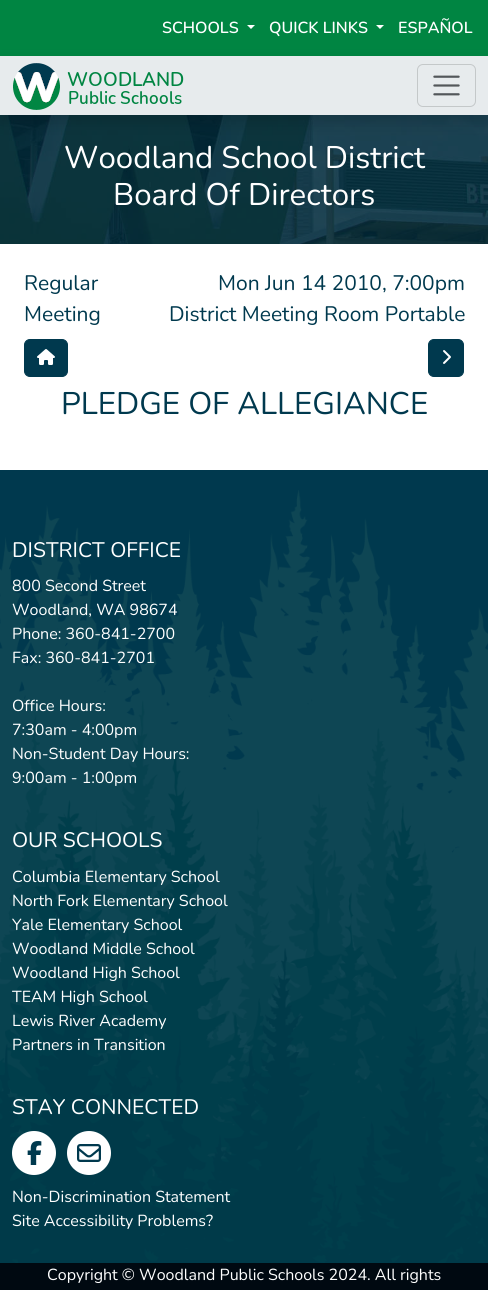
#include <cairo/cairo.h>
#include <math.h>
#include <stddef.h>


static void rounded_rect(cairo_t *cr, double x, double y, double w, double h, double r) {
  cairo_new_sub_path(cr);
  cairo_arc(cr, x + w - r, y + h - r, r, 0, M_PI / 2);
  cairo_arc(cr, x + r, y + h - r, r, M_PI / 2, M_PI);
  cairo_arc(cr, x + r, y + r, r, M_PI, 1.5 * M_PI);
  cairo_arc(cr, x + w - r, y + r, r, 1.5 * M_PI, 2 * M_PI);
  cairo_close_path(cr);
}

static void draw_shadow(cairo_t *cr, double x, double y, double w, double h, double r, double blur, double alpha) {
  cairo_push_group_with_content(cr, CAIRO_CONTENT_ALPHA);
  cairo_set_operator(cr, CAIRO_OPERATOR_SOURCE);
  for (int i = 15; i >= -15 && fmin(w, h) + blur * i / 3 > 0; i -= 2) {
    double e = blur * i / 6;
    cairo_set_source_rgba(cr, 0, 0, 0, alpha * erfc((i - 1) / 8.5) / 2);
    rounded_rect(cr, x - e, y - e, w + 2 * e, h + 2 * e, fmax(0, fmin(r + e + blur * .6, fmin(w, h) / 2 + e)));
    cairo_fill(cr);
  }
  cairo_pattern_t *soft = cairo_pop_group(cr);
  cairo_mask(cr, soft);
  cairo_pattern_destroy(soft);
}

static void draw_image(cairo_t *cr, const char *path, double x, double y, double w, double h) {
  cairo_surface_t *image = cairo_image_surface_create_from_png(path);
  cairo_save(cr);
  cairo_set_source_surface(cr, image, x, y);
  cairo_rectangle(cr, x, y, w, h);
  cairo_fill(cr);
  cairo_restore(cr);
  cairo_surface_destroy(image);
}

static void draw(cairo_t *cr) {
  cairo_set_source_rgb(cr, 1, 1, 1);
  cairo_paint(cr);
  cairo_set_source_rgb(cr, 0, 133 / 255.0, 66 / 255.0);
  cairo_rectangle(cr, 0, 0, 488, 56);
  cairo_fill(cr);
  cairo_set_source_rgb(cr, 1, 1, 1);
  cairo_new_path(cr);
  cairo_move_to(cr, 247, 25);
  cairo_line_to(cr, 255, 25);
  cairo_line_to(cr, 251, 29);
  cairo_close_path(cr);
  cairo_fill(cr);
  cairo_new_path(cr);
  cairo_move_to(cr, 376, 25);
  cairo_line_to(cr, 384, 25);
  cairo_line_to(cr, 380, 29);
  cairo_close_path(cr);
  cairo_fill(cr);
  draw_image(cr, "images/3.png", 0, 115, 488, 129);
  cairo_set_source_rgb(cr, 0, 0, 0);
  draw_shadow(cr, 0, 64, 488, 59, 0, 8, 0.15);
  cairo_set_source_rgb(cr, 231 / 255.0, 235 / 255.0, 237 / 255.0);
  cairo_rectangle(cr, 0, 56, 488, 59);
  cairo_fill(cr);
  draw_image(cr, "images/1.png", 13, 63, 171, 47);
  rounded_rect(cr, 417.5, 64.5, 58, 42, 5.5);
  cairo_set_source_rgb(cr, 196 / 255.0, 200 / 255.0, 201 / 255.0);
  cairo_set_line_width(cr, 1);
  cairo_stroke(cr);
  draw_image(cr, "images/2.png", 433, 75, 27, 21);
  cairo_set_source_rgb(cr, 0, 57 / 255.0, 78 / 255.0);
  rounded_rect(cr, 24.5, 339.5, 43, 37, 5.5);
  cairo_fill_preserve(cr);
  cairo_stroke(cr);
  draw_image(cr, "images/4.png", 37, 349, 18, 16);
  rounded_rect(cr, 428.5, 339.5, 35, 37, 5.5);
  cairo_fill_preserve(cr);
  cairo_stroke(cr);
  draw_image(cr, "images/5.png", 443, 350, 8, 14);
  cairo_rectangle(cr, 0, 470, 488, 793);
  cairo_fill(cr);
  draw_image(cr, "images/6.png", 0, 490, 488, 773);
  cairo_set_source_rgb(cr, 1, 1, 1);
  cairo_arc(cr, 34, 1153, 22, 0, 2 * M_PI);
  cairo_fill(cr);
  draw_image(cr, "images/7.png", 27, 1141, 15, 24);
  cairo_arc(cr, 89, 1153, 22, 0, 2 * M_PI);
  cairo_fill(cr);
  draw_image(cr, "images/8.png", 77, 1144, 24, 18);
  cairo_set_source_rgb(cr, 0, 9 / 255.0, 17 / 255.0);
  cairo_rectangle(cr, 0, 1263, 488, 27);
  cairo_fill(cr);
  cairo_select_font_face(cr, "Nunito SemiBold", CAIRO_FONT_SLANT_NORMAL, CAIRO_FONT_WEIGHT_NORMAL);
  cairo_set_font_size(cr, 16);
  cairo_set_source_rgb(cr, 1, 1, 1);
  cairo_move_to(cr, 162, 33);
  cairo_show_text(cr, "SCHOOLS");
  cairo_move_to(cr, 269, 33);
  cairo_show_text(cr, "QUICK LINKS");
  cairo_move_to(cr, 398, 33);
  cairo_show_text(cr, "ESPAÑOL");
  cairo_select_font_face(cr, "Nunito", CAIRO_FONT_SLANT_NORMAL, CAIRO_FONT_WEIGHT_NORMAL);
  cairo_set_font_size(cr, 31.25);
  cairo_move_to(cr, 64, 168);
  cairo_show_text(cr, "Woodland School District");
  cairo_move_to(cr, 113, 205);
  cairo_show_text(cr, "Board Of Directors");
  cairo_set_font_size(cr, 21);
  cairo_set_source_rgb(cr, 0, 57 / 255.0, 78 / 255.0);
  cairo_move_to(cr, 24, 290);
  cairo_show_text(cr, "Regular");
  cairo_move_to(cr, 24, 321);
  cairo_show_text(cr, "Meeting");
  cairo_move_to(cr, 218, 290);
  cairo_show_text(cr, "Mon Jun 14 2010, 7:00pm");
  cairo_move_to(cr, 169, 321);
  cairo_show_text(cr, "District Meeting Room Portable");
  cairo_set_font_size(cr, 31.25);
  cairo_move_to(cr, 61, 414);
  cairo_show_text(cr, "PLEDGE OF ALLEGIANCE");
  cairo_set_font_size(cr, 21);
  cairo_set_source_rgb(cr, 1, 1, 1);
  cairo_move_to(cr, 12, 557);
  cairo_show_text(cr, "DISTRICT OFFICE");
  cairo_set_font_size(cr, 16);
  cairo_move_to(cr, 12, 591);
  cairo_show_text(cr, "800 Second Street");
  cairo_move_to(cr, 12, 615);
  cairo_show_text(cr, "Woodland, WA 98674");
  cairo_move_to(cr, 12, 639);
  cairo_show_text(cr, "Phone: 360-841-2700");
  cairo_move_to(cr, 12, 663);
  cairo_show_text(cr, "Fax: 360-841-2701");
  cairo_move_to(cr, 12, 711);
  cairo_show_text(cr, "Office Hours:");
  cairo_move_to(cr, 12, 735);
  cairo_show_text(cr, "7:30am - 4:00pm");
  cairo_move_to(cr, 12, 759);
  cairo_show_text(cr, "Non-Student Day Hours:");
  cairo_move_to(cr, 12, 783);
  cairo_show_text(cr, "9:00am - 1:00pm");
  cairo_set_font_size(cr, 21);
  cairo_move_to(cr, 12, 847);
  cairo_show_text(cr, "OUR SCHOOLS");
  cairo_set_font_size(cr, 16);
  cairo_move_to(cr, 12, 882);
  cairo_show_text(cr, "Columbia Elementary School");
  cairo_move_to(cr, 12, 906);
  cairo_show_text(cr, "North Fork Elementary School");
  cairo_move_to(cr, 12, 930);
  cairo_show_text(cr, "Yale Elementary School");
  cairo_move_to(cr, 12, 954);
  cairo_show_text(cr, "Woodland Middle School");
  cairo_move_to(cr, 12, 978);
  cairo_show_text(cr, "Woodland High School");
  cairo_move_to(cr, 12, 1002);
  cairo_show_text(cr, "TEAM High School");
  cairo_move_to(cr, 12, 1026);
  cairo_show_text(cr, "Lewis River Academy");
  cairo_move_to(cr, 12, 1050);
  cairo_show_text(cr, "Partners in Transition");
  cairo_set_font_size(cr, 21);
  cairo_move_to(cr, 12, 1114);
  cairo_show_text(cr, "STAY CONNECTED");
  cairo_set_font_size(cr, 16);
  cairo_move_to(cr, 12, 1202);
  cairo_show_text(cr, "Non-Discrimination Statement");
  cairo_move_to(cr, 12, 1226);
  cairo_show_text(cr, "Site Accessibility Problems?");
  cairo_move_to(cr, 47, 1280);
  cairo_show_text(cr, "Copyright © Woodland Public Schools 2024. All rights");
}

int main(void) {
  cairo_surface_t *surface = cairo_image_surface_create(CAIRO_FORMAT_RGB24, 488, 1290);
  cairo_t *cr = cairo_create(surface);
  cairo_font_options_t *options = cairo_font_options_create();
  cairo_font_options_set_hint_metrics(options, CAIRO_HINT_METRICS_OFF);
  cairo_font_options_set_hint_style(options, CAIRO_HINT_STYLE_NONE);
  cairo_set_font_options(cr, options);
  cairo_set_miter_limit(cr, 4);
  draw(cr);
  cairo_surface_write_to_png(surface, "out.png");
  cairo_font_options_destroy(options);
  cairo_destroy(cr);
  cairo_surface_destroy(surface);
  return 0;
}
